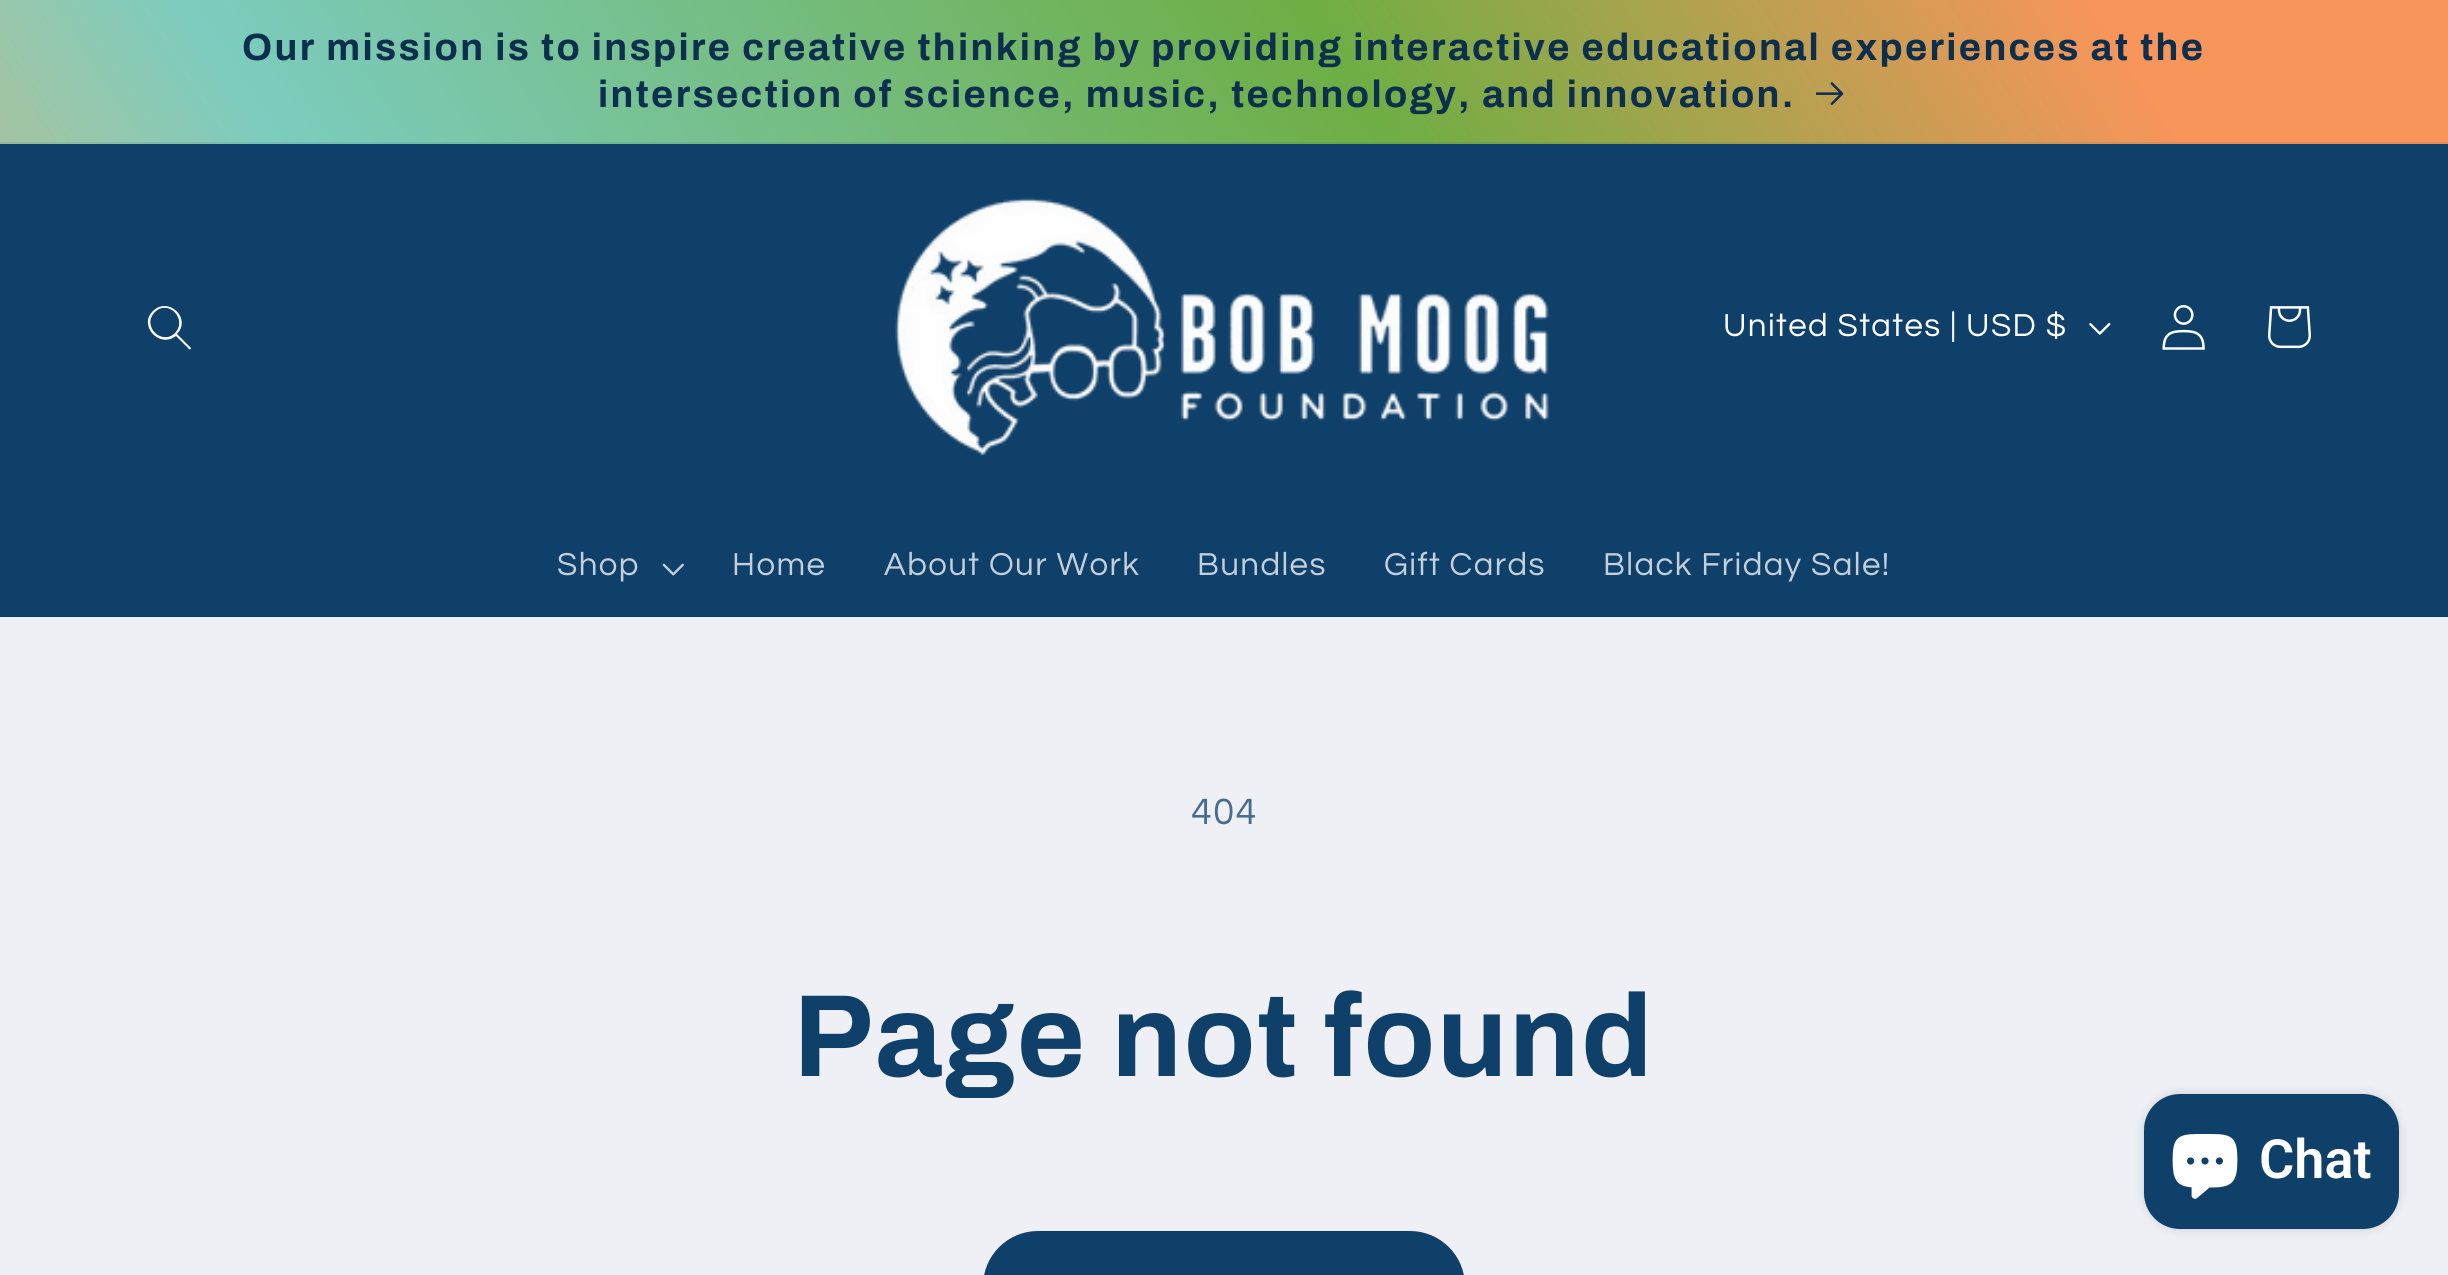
#include <cairo/cairo.h>
#include <math.h>
#include <stddef.h>


static void draw_spaced(cairo_t *cr, double x, double y, const char *s, double letter, double word) {
  cairo_move_to(cr, x, y);
  while (*s) {
    char ch[5] = {0};
    int n = 0;
    do ch[n++] = *s++; while ((*s & 0xC0) == 0x80);
    cairo_show_text(cr, ch);
    cairo_rel_move_to(cr, letter + word * (*ch == ' '), 0);
  }
}

static void rounded_rect(cairo_t *cr, double x, double y, double w, double h, double r) {
  cairo_new_sub_path(cr);
  cairo_arc(cr, x + w - r, y + h - r, r, 0, M_PI / 2);
  cairo_arc(cr, x + r, y + h - r, r, M_PI / 2, M_PI);
  cairo_arc(cr, x + r, y + r, r, M_PI, 1.5 * M_PI);
  cairo_arc(cr, x + w - r, y + r, r, 1.5 * M_PI, 2 * M_PI);
  cairo_close_path(cr);
}

static void draw_shadow(cairo_t *cr, double x, double y, double w, double h, double r, double blur, double alpha) {
  cairo_push_group_with_content(cr, CAIRO_CONTENT_ALPHA);
  cairo_set_operator(cr, CAIRO_OPERATOR_SOURCE);
  for (int i = 15; i >= -15 && fmin(w, h) + blur * i / 3 > 0; i -= 2) {
    double e = blur * i / 6;
    cairo_set_source_rgba(cr, 0, 0, 0, alpha * erfc((i - 1) / 8.5) / 2);
    rounded_rect(cr, x - e, y - e, w + 2 * e, h + 2 * e, fmax(0, fmin(r + e + blur * .6, fmin(w, h) / 2 + e)));
    cairo_fill(cr);
  }
  cairo_pattern_t *soft = cairo_pop_group(cr);
  cairo_mask(cr, soft);
  cairo_pattern_destroy(soft);
}

static void draw_image(cairo_t *cr, const char *path, double x, double y, double w, double h) {
  cairo_surface_t *image = cairo_image_surface_create_from_png(path);
  cairo_save(cr);
  cairo_set_source_surface(cr, image, x, y);
  cairo_rectangle(cr, x, y, w, h);
  cairo_fill(cr);
  cairo_restore(cr);
  cairo_surface_destroy(image);
}

static void draw(cairo_t *cr) {
  cairo_pattern_t *gradient;
  cairo_set_source_rgb(cr, 239 / 255.0, 240 / 255.0, 245 / 255.0);
  cairo_paint(cr);
  gradient = cairo_pattern_create_linear(72, 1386, 2376, -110);
  cairo_pattern_add_color_stop_rgba(gradient, 0.05, 247 / 255.0, 179 / 255.0, 99 / 255.0, 1);
  cairo_pattern_add_color_stop_rgba(gradient, 0.31, 124 / 255.0, 204 / 255.0, 191 / 255.0, 1);
  cairo_pattern_add_color_stop_rgba(gradient, 0.65, 110 / 255.0, 174 / 255.0, 68 / 255.0, 1);
  cairo_pattern_add_color_stop_rgba(gradient, 0.89, 247 / 255.0, 149 / 255.0, 91 / 255.0, 1);
  cairo_set_source(cr, gradient);
  cairo_pattern_destroy(gradient);
  cairo_rectangle(cr, 0, 0, 2448, 142);
  cairo_fill(cr);
  gradient = cairo_pattern_create_linear(72, 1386, 2376, -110);
  cairo_pattern_add_color_stop_rgba(gradient, 0.05, 228 / 255.0, 168 / 255.0, 97 / 255.0, 1);
  cairo_pattern_add_color_stop_rgba(gradient, 0.31, 115 / 255.0, 191 / 255.0, 182 / 255.0, 1);
  cairo_pattern_add_color_stop_rgba(gradient, 0.65, 102 / 255.0, 164 / 255.0, 69 / 255.0, 1);
  cairo_pattern_add_color_stop_rgba(gradient, 0.89, 228 / 255.0, 141 / 255.0, 90 / 255.0, 1);
  cairo_set_source(cr, gradient);
  cairo_pattern_destroy(gradient);
  cairo_rectangle(cr, 0, 142, 2448, 2);
  cairo_fill(cr);
  draw_image(cr, "images/1.png", 1816, 82, 28, 23);
  cairo_set_source_rgb(cr, 15 / 255.0, 64 / 255.0, 106 / 255.0);
  cairo_rectangle(cr, 0, 144, 2448, 473);
  cairo_fill(cr);
  cairo_set_source_rgb(cr, 1, 1, 1);
  cairo_set_fill_rule(cr, CAIRO_FILL_RULE_EVEN_ODD);
  cairo_new_path(cr);
  cairo_move_to(cr, 175, 333);
  cairo_curve_to(cr, 162, 346, 141, 326, 155, 312);
  cairo_curve_to(cr, 168, 299, 188, 319, 175, 333);
  cairo_move_to(cr, 176, 336);
  cairo_curve_to(cr, 159, 349, 138, 325, 153, 311);
  cairo_curve_to(cr, 168, 296, 192, 318, 177, 334);
  cairo_line_to(cr, 191, 348);
  cairo_curve_to(cr, 191, 349, 190, 350, 189, 349);
  cairo_close_path(cr);
  cairo_fill(cr);
  draw_image(cr, "images/2.png", 895, 197, 654, 259);
  draw_image(cr, "images/3.png", 2089, 322, 22, 13);
  draw_image(cr, "images/4.png", 2162, 305, 43, 45);
  draw_image(cr, "images/5.png", 2268, 306, 43, 43);
  draw_image(cr, "images/6.png", 662, 563, 22, 13);
  cairo_set_source_rgb(cr, 15 / 255.0, 64 / 255.0, 106 / 255.0);
  rounded_rect(cr, 984, 1232, 480, 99, 54);
  cairo_fill_preserve(cr);
  cairo_stroke(cr);
  cairo_set_source_rgb(cr, 0, 0, 0);
  draw_shadow(cr, 2144, 1094, 255, 135, 36, 5.5, 0.15);
  cairo_set_source_rgb(cr, 15 / 255.0, 64 / 255.0, 106 / 255.0);
  rounded_rect(cr, 2144, 1094, 255, 135, 36);
  cairo_fill(cr);
  draw_image(cr, "images/7.png", 2172, 1134, 66, 65);
  cairo_select_font_face(cr, "Archivo", CAIRO_FONT_SLANT_NORMAL, CAIRO_FONT_WEIGHT_BOLD);
  cairo_set_font_size(cr, 38.02);
  cairo_set_source_rgb(cr, 12 / 255.0, 47 / 255.0, 77 / 255.0);
  draw_spaced(cr, 242, 60, "Our mission is to inspire creative thinking by providing interactive educational experiences at the", 2.35, 0);
  draw_spaced(cr, 598, 107, "intersection of science, music, technology, and innovation.", 2.35, 0);
  cairo_select_font_face(cr, "Questrial", CAIRO_FONT_SLANT_NORMAL, CAIRO_FONT_WEIGHT_NORMAL);
  cairo_set_font_size(cr, 33);
  cairo_set_source_rgb(cr, 1, 1, 1);
  draw_spaced(cr, 1723, 336, "United States | USD $", 1.4, 0);
  cairo_set_source_rgb(cr, 195 / 255.0, 207 / 255.0, 218 / 255.0);
  draw_spaced(cr, 557, 575, "Shop", 1.4, 0);
  draw_spaced(cr, 732, 575, "Home", 1.4, 0);
  draw_spaced(cr, 884, 575, "About Our Work", 1.4, 0);
  draw_spaced(cr, 1197, 575, "Bundles", 1.4, 0);
  draw_spaced(cr, 1384, 575, "Gift Cards", 1.4, 0);
  draw_spaced(cr, 1603, 575, "Black Friday Sale!", 1.4, 0);
  cairo_set_font_size(cr, 38);
  cairo_set_source_rgb(cr, 71 / 255.0, 108 / 255.0, 141 / 255.0);
  draw_spaced(cr, 1191, 824, "404", 1.4, 0);
  cairo_select_font_face(cr, "Archivo", CAIRO_FONT_SLANT_NORMAL, CAIRO_FONT_WEIGHT_BOLD);
  cairo_set_font_size(cr, 117);
  cairo_set_source_rgb(cr, 15 / 255.0, 64 / 255.0, 106 / 255.0);
  draw_spaced(cr, 793, 1076, "Page not found", 1.75, 0);
  cairo_select_font_face(cr, "Roboto SemiBold", CAIRO_FONT_SLANT_NORMAL, CAIRO_FONT_WEIGHT_NORMAL);
  cairo_set_font_size(cr, 54);
  cairo_set_source_rgb(cr, 1, 1, 1);
  cairo_move_to(cr, 2259, 1178);
  cairo_show_text(cr, "Chat");
}

int main(void) {
  cairo_surface_t *surface = cairo_image_surface_create(CAIRO_FORMAT_RGB24, 2448, 1275);
  cairo_t *cr = cairo_create(surface);
  cairo_font_options_t *options = cairo_font_options_create();
  cairo_font_options_set_hint_metrics(options, CAIRO_HINT_METRICS_OFF);
  cairo_font_options_set_hint_style(options, CAIRO_HINT_STYLE_NONE);
  cairo_set_font_options(cr, options);
  cairo_set_miter_limit(cr, 4);
  draw(cr);
  cairo_surface_write_to_png(surface, "out.png");
  cairo_font_options_destroy(options);
  cairo_destroy(cr);
  cairo_surface_destroy(surface);
  return 0;
}
